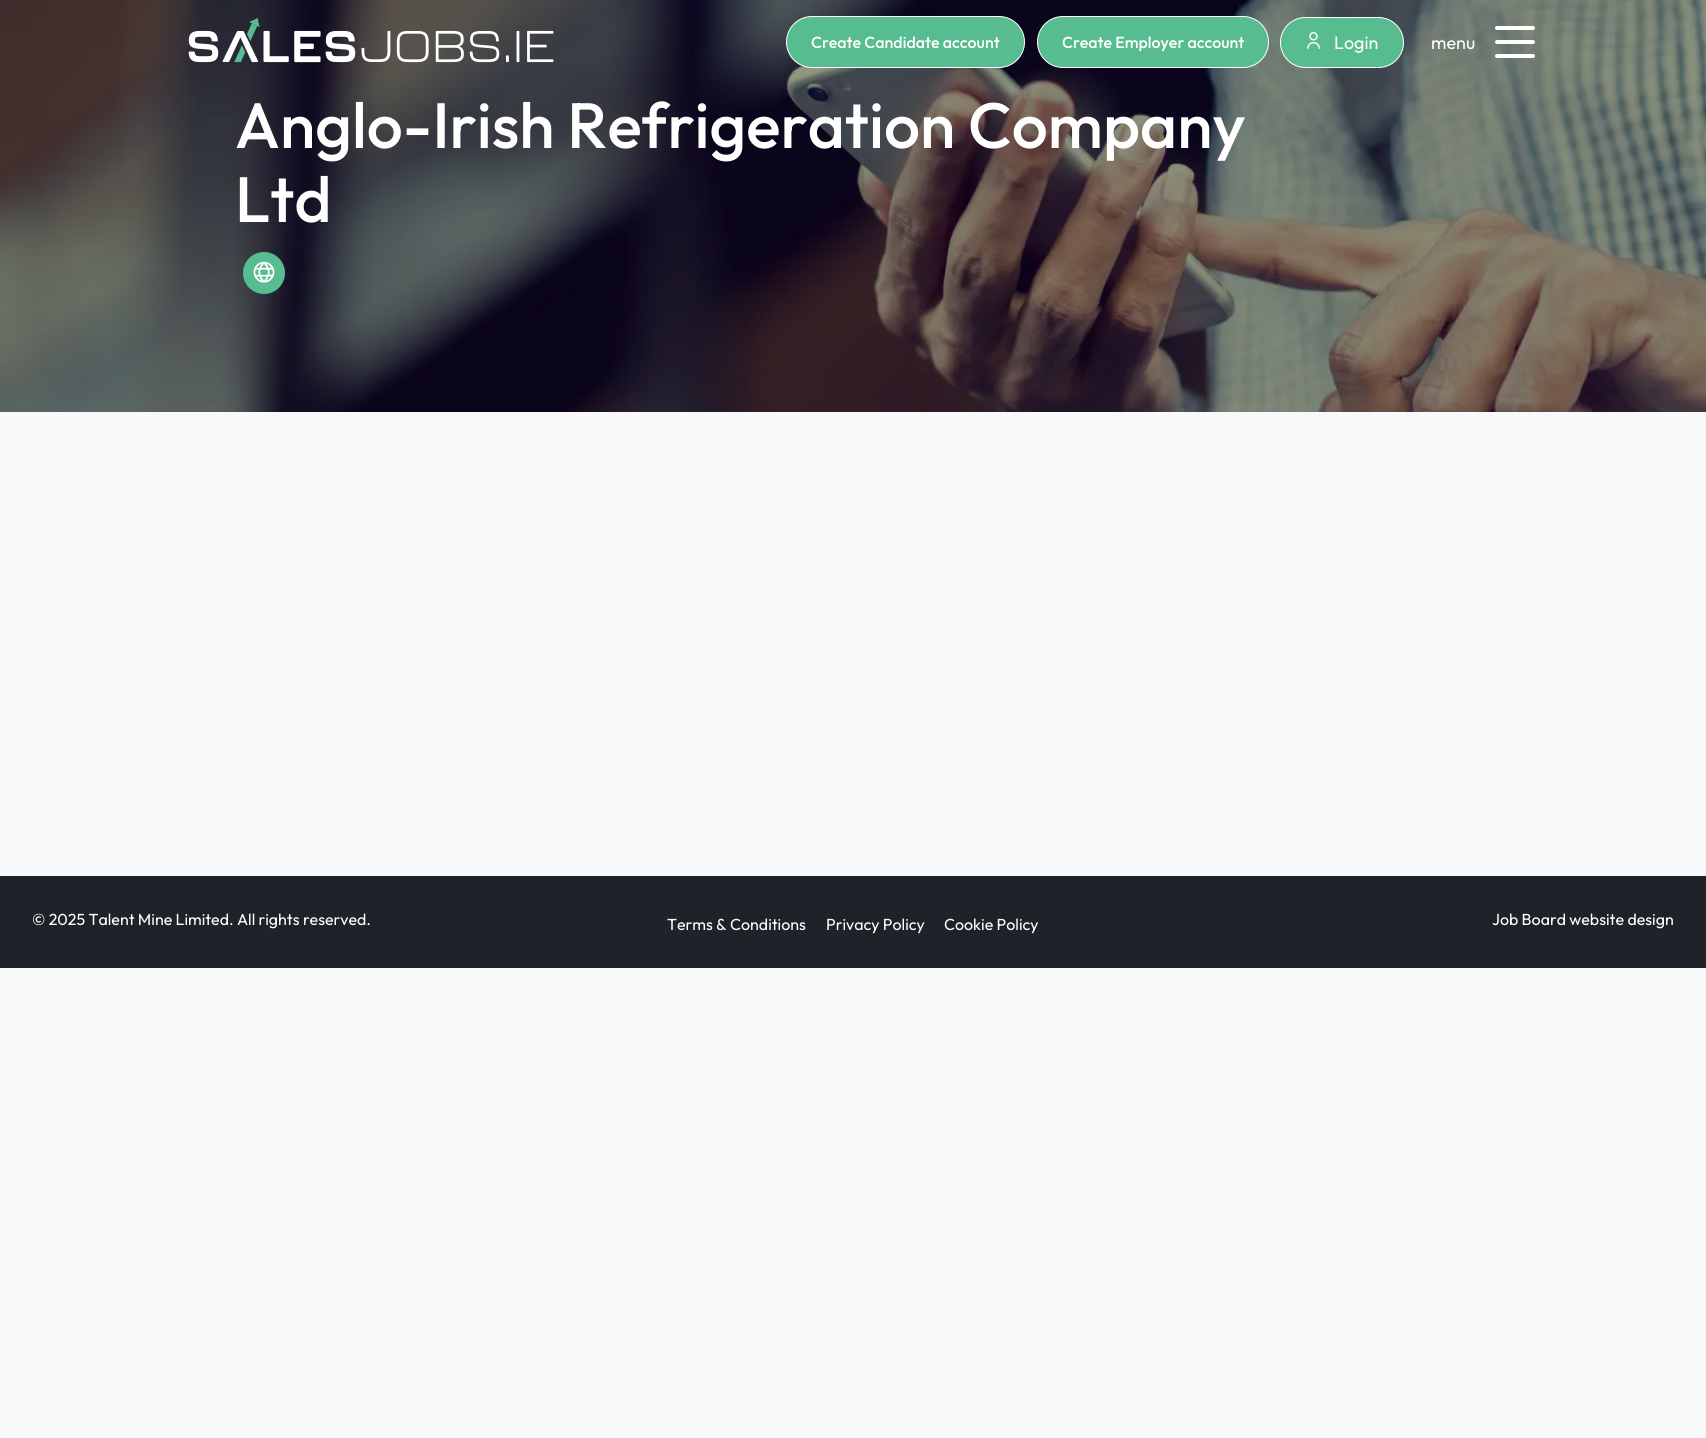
#include <cairo/cairo.h>
#include <math.h>
#include <stddef.h>


static void rounded_rect(cairo_t *cr, double x, double y, double w, double h, double r) {
  cairo_new_sub_path(cr);
  cairo_arc(cr, x + w - r, y + h - r, r, 0, M_PI / 2);
  cairo_arc(cr, x + r, y + h - r, r, M_PI / 2, M_PI);
  cairo_arc(cr, x + r, y + r, r, M_PI, 1.5 * M_PI);
  cairo_arc(cr, x + w - r, y + r, r, 1.5 * M_PI, 2 * M_PI);
  cairo_close_path(cr);
}

static void draw_image(cairo_t *cr, const char *path, double x, double y, double w, double h) {
  cairo_surface_t *image = cairo_image_surface_create_from_png(path);
  cairo_save(cr);
  cairo_set_source_surface(cr, image, x, y);
  cairo_rectangle(cr, x, y, w, h);
  cairo_fill(cr);
  cairo_restore(cr);
  cairo_surface_destroy(image);
}

static void draw(cairo_t *cr) {
  cairo_set_source_rgb(cr, 247 / 255.0, 249 / 255.0, 251 / 255.0);
  cairo_paint(cr);
  draw_image(cr, "images/3.png", 0, 0, 1706, 412);
  draw_image(cr, "images/1.png", 188, 18, 366, 45);
  cairo_set_source_rgb(cr, 87 / 255.0, 189 / 255.0, 145 / 255.0);
  rounded_rect(cr, 786.5, 16.5, 238, 51, 25.5);
  cairo_fill_preserve(cr);
  cairo_set_source_rgb(cr, 1, 1, 1);
  cairo_set_line_width(cr, 1);
  cairo_stroke(cr);
  cairo_set_source_rgb(cr, 87 / 255.0, 189 / 255.0, 145 / 255.0);
  rounded_rect(cr, 1037.5, 16.5, 231, 51, 25.5);
  cairo_fill_preserve(cr);
  cairo_set_source_rgb(cr, 1, 1, 1);
  cairo_stroke(cr);
  cairo_set_source_rgb(cr, 87 / 255.0, 189 / 255.0, 145 / 255.0);
  rounded_rect(cr, 1280.5, 17.5, 123, 50, 25);
  cairo_fill_preserve(cr);
  cairo_set_source_rgb(cr, 1, 1, 1);
  cairo_stroke(cr);
  draw_image(cr, "images/2.png", 1307, 32, 13, 17);
  rounded_rect(cr, 1495, 26, 40, 4, 2);
  cairo_fill(cr);
  rounded_rect(cr, 1495, 40, 40, 4, 2);
  cairo_fill(cr);
  rounded_rect(cr, 1495, 54, 40, 4, 2);
  cairo_fill(cr);
  cairo_set_source_rgb(cr, 87 / 255.0, 189 / 255.0, 145 / 255.0);
  cairo_arc(cr, 264, 273, 21, 0, 2 * M_PI);
  cairo_fill(cr);
  draw_image(cr, "images/4.png", 253, 261, 22, 22);
  cairo_set_source_rgb(cr, 31 / 255.0, 34 / 255.0, 41 / 255.0);
  cairo_rectangle(cr, 0, 876, 1706, 92);
  cairo_fill(cr);
  cairo_select_font_face(cr, "Outfit Medium", CAIRO_FONT_SLANT_NORMAL, CAIRO_FONT_WEIGHT_NORMAL);
  cairo_set_font_size(cr, 16);
  cairo_set_source_rgb(cr, 1, 1, 1);
  cairo_move_to(cr, 811, 48);
  cairo_show_text(cr, "Create Candidate account");
  cairo_move_to(cr, 1062, 48);
  cairo_show_text(cr, "Create Employer account");
  cairo_select_font_face(cr, "Outfit", CAIRO_FONT_SLANT_NORMAL, CAIRO_FONT_WEIGHT_NORMAL);
  cairo_set_font_size(cr, 18);
  cairo_move_to(cr, 1334, 49);
  cairo_show_text(cr, "Login");
  cairo_move_to(cr, 1431, 49);
  cairo_show_text(cr, "menu");
  cairo_select_font_face(cr, "Outfit Medium", CAIRO_FONT_SLANT_NORMAL, CAIRO_FONT_WEIGHT_NORMAL);
  cairo_set_font_size(cr, 64);
  cairo_move_to(cr, 235, 148);
  cairo_show_text(cr, "Anglo-Irish Refrigeration Company");
  cairo_move_to(cr, 235, 222);
  cairo_show_text(cr, "Ltd");
  cairo_select_font_face(cr, "Outfit", CAIRO_FONT_SLANT_NORMAL, CAIRO_FONT_WEIGHT_NORMAL);
  cairo_set_font_size(cr, 16);
  cairo_move_to(cr, 32, 925);
  cairo_show_text(cr, "© 2025 Talent Mine Limited. All rights reserved.");
  cairo_move_to(cr, 667, 930);
  cairo_show_text(cr, "Terms & Conditions");
  cairo_move_to(cr, 826, 930);
  cairo_show_text(cr, "Privacy Policy");
  cairo_move_to(cr, 944, 930);
  cairo_show_text(cr, "Cookie Policy");
  cairo_move_to(cr, 1492, 925);
  cairo_show_text(cr, "Job Board website design");
}

int main(void) {
  cairo_surface_t *surface = cairo_image_surface_create(CAIRO_FORMAT_RGB24, 1706, 1438);
  cairo_t *cr = cairo_create(surface);
  cairo_font_options_t *options = cairo_font_options_create();
  cairo_font_options_set_hint_metrics(options, CAIRO_HINT_METRICS_OFF);
  cairo_font_options_set_hint_style(options, CAIRO_HINT_STYLE_NONE);
  cairo_set_font_options(cr, options);
  cairo_set_miter_limit(cr, 4);
  draw(cr);
  cairo_surface_write_to_png(surface, "out.png");
  cairo_font_options_destroy(options);
  cairo_destroy(cr);
  cairo_surface_destroy(surface);
  return 0;
}
